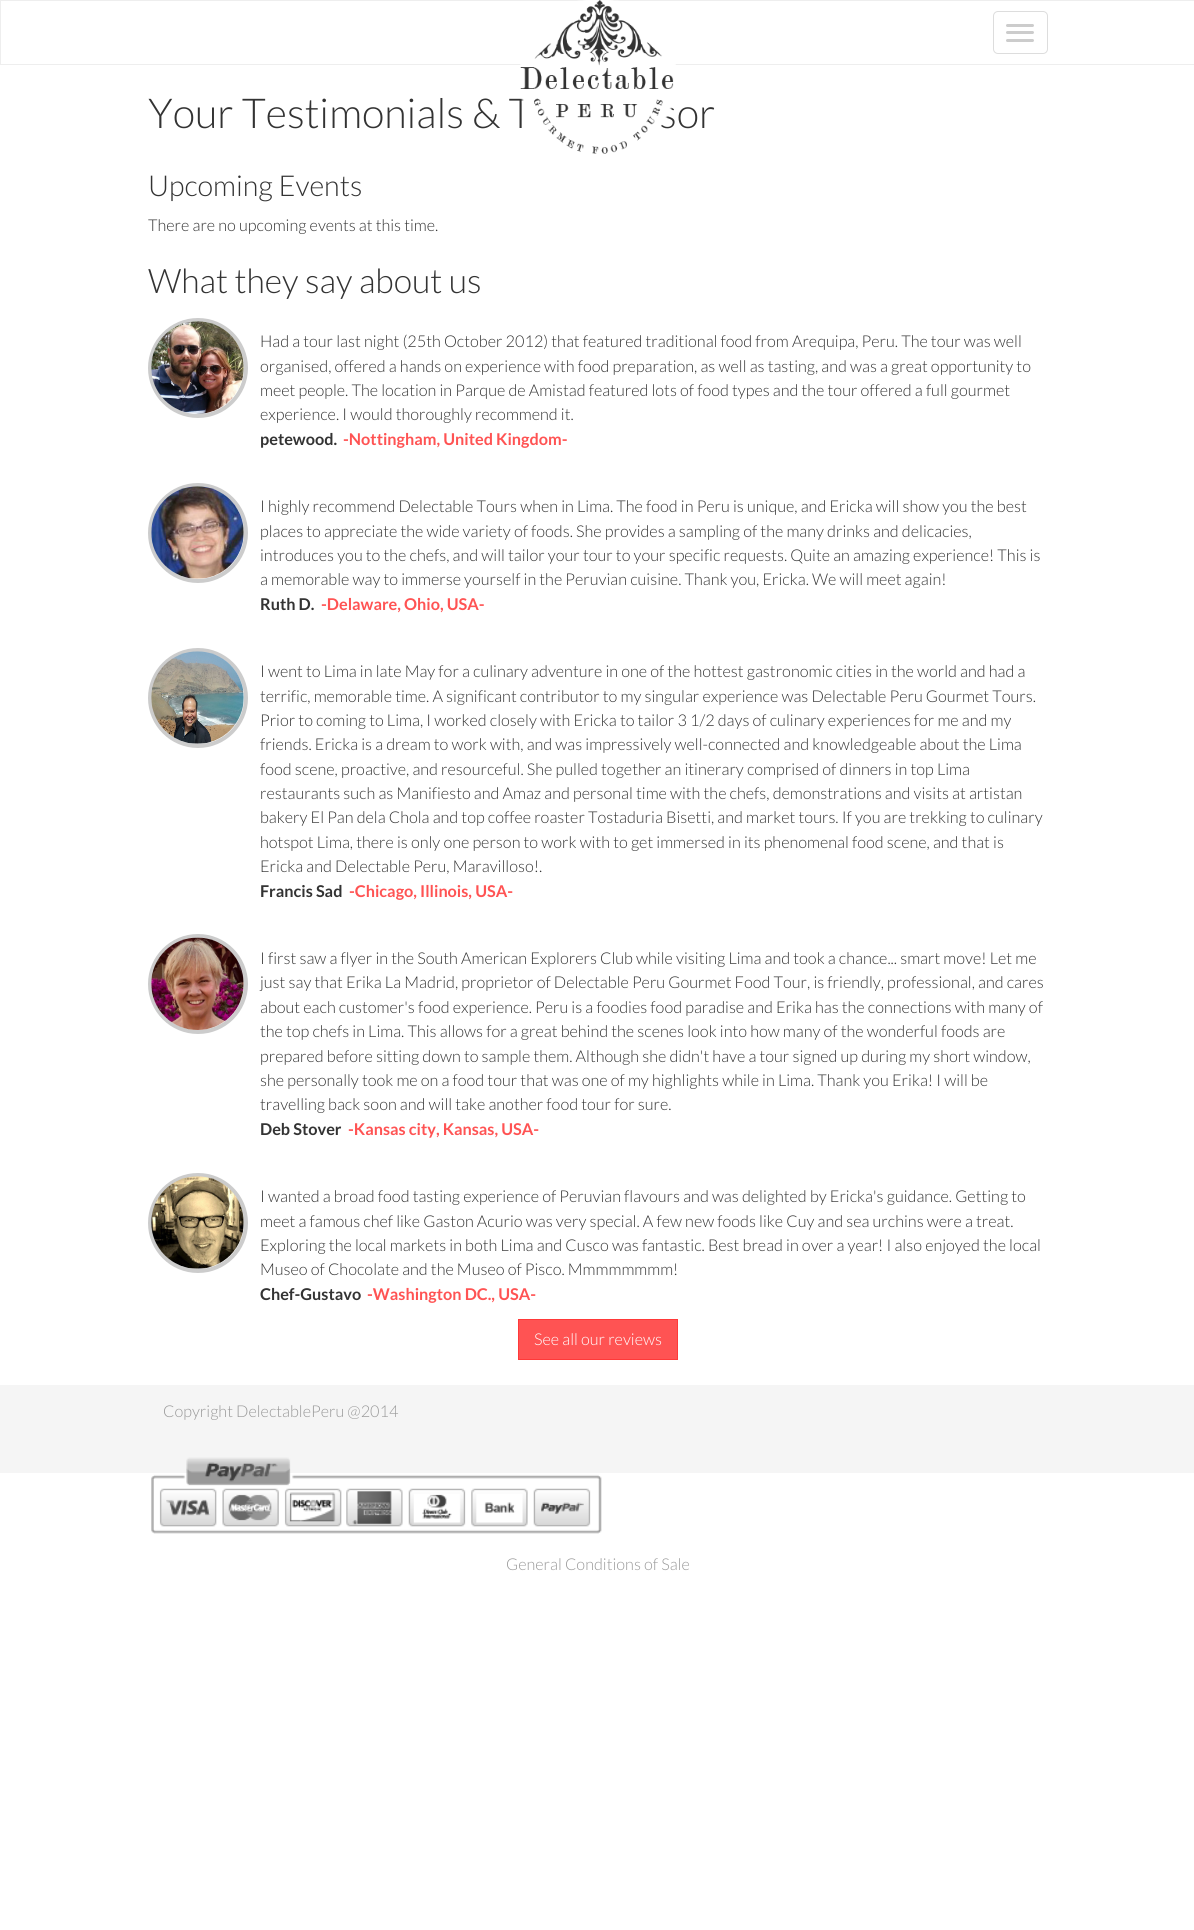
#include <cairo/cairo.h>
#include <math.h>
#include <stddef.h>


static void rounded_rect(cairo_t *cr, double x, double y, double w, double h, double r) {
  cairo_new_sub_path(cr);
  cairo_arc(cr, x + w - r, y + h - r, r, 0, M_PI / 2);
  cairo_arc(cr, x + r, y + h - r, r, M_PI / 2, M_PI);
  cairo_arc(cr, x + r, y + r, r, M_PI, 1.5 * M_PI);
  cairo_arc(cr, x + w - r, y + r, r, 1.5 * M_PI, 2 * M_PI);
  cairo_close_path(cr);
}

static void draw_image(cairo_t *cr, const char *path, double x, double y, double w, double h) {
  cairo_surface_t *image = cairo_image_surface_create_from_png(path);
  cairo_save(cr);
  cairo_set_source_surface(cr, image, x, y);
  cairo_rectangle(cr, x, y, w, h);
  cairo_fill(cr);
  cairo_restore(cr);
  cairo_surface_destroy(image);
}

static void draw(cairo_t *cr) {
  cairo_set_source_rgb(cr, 1, 1, 1);
  cairo_paint(cr);
  cairo_rectangle(cr, 0.5, 0.5, 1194, 64);
  cairo_set_source_rgb(cr, 238 / 255.0, 238 / 255.0, 238 / 255.0);
  cairo_set_line_width(cr, 1);
  cairo_stroke(cr);
  rounded_rect(cr, 993.5, 11.5, 54, 42, 4.5);
  cairo_set_source_rgb(cr, 221 / 255.0, 221 / 255.0, 221 / 255.0);
  cairo_stroke(cr);
  cairo_set_source_rgb(cr, 204 / 255.0, 204 / 255.0, 204 / 255.0);
  rounded_rect(cr, 1006, 24, 28, 3, 1.5);
  cairo_fill(cr);
  rounded_rect(cr, 1006, 31, 28, 3, 1.5);
  cairo_fill(cr);
  rounded_rect(cr, 1006, 39, 28, 3, 1.5);
  cairo_fill(cr);
  cairo_arc(cr, 198, 368, 48, 0, 2 * M_PI);
  cairo_set_line_width(cr, 4);
  cairo_stroke(cr);
  draw_image(cr, "images/2.png", 151, 321, 93, 93);
  cairo_arc(cr, 198, 533, 48, 0, 2 * M_PI);
  cairo_stroke(cr);
  draw_image(cr, "images/3.png", 151, 486, 93, 93);
  cairo_arc(cr, 198, 698, 48, 0, 2 * M_PI);
  cairo_stroke(cr);
  draw_image(cr, "images/4.png", 151, 651, 93, 93);
  cairo_arc(cr, 198, 984, 48, 0, 2 * M_PI);
  cairo_stroke(cr);
  draw_image(cr, "images/5.png", 151, 937, 93, 93);
  cairo_arc(cr, 198, 1223, 48, 0, 2 * M_PI);
  cairo_stroke(cr);
  draw_image(cr, "images/6.png", 151, 1176, 93, 93);
  cairo_set_source_rgb(cr, 1, 83 / 255.0, 83 / 255.0);
  cairo_rectangle(cr, 518.5, 1319.5, 159, 40);
  cairo_fill_preserve(cr);
  cairo_set_source_rgb(cr, 1, 57 / 255.0, 57 / 255.0);
  cairo_set_line_width(cr, 1);
  cairo_stroke(cr);
  cairo_set_source_rgb(cr, 245 / 255.0, 245 / 255.0, 245 / 255.0);
  cairo_rectangle(cr, 0, 1385, 1194, 88);
  cairo_fill(cr);
  draw_image(cr, "images/7.png", 151, 1457, 451, 77);
  cairo_select_font_face(cr, "Lato Light", CAIRO_FONT_SLANT_NORMAL, CAIRO_FONT_WEIGHT_NORMAL);
  cairo_set_font_size(cr, 41.25);
  cairo_set_source_rgb(cr, 51 / 255.0, 51 / 255.0, 51 / 255.0);
  cairo_move_to(cr, 148, 128);
  cairo_show_text(cr, "Your Testimonials & T");
  cairo_move_to(cr, 659, 128);
  cairo_show_text(cr, "sor");
  draw_image(cr, "images/1.png", 520, 0, 156, 154);
  cairo_set_font_size(cr, 28.75);
  cairo_move_to(cr, 148, 196);
  cairo_show_text(cr, "Upcoming Events");
  cairo_set_font_size(cr, 16.25);
  cairo_move_to(cr, 148, 231);
  cairo_show_text(cr, "There are no upcoming events at this time.");
  cairo_set_font_size(cr, 33.75);
  cairo_move_to(cr, 148, 293);
  cairo_show_text(cr, "What they say about us");
  cairo_set_font_size(cr, 16.25);
  cairo_move_to(cr, 260, 347);
  cairo_show_text(cr, "Had a tour last night (25th October 2012) that featured traditional food from Arequipa, Peru. The tour was well");
  cairo_move_to(cr, 260, 372);
  cairo_show_text(cr, "organised, offered a hands on experience with food preparation, as well as tasting, and was a great opportunity to");
  cairo_move_to(cr, 260, 396);
  cairo_show_text(cr, "meet people. The location in Parque de Amistad featured lots of food types and the tour offered a full gourmet");
  cairo_move_to(cr, 260, 420);
  cairo_show_text(cr, "experience. I would thoroughly recommend it.");
  cairo_select_font_face(cr, "Lato", CAIRO_FONT_SLANT_NORMAL, CAIRO_FONT_WEIGHT_BOLD);
  cairo_move_to(cr, 260, 445);
  cairo_show_text(cr, "petewood.");
  cairo_set_source_rgb(cr, 1, 83 / 255.0, 83 / 255.0);
  cairo_move_to(cr, 343, 445);
  cairo_show_text(cr, "-Nottingham, United Kingdom-");
  cairo_select_font_face(cr, "Lato Light", CAIRO_FONT_SLANT_NORMAL, CAIRO_FONT_WEIGHT_NORMAL);
  cairo_set_source_rgb(cr, 51 / 255.0, 51 / 255.0, 51 / 255.0);
  cairo_move_to(cr, 260, 512);
  cairo_show_text(cr, "I highly recommend Delectable Tours when in Lima. The food in Peru is unique, and Ericka will show you the best");
  cairo_move_to(cr, 260, 537);
  cairo_show_text(cr, "places to appreciate the wide variety of foods. She provides a sampling of the many drinks and delicacies,");
  cairo_move_to(cr, 260, 561);
  cairo_show_text(cr, "introduces you to the chefs, and will tailor your tour to your specific requests. Quite an amazing experience! This is");
  cairo_move_to(cr, 260, 585);
  cairo_show_text(cr, "a memorable way to immerse yourself in the Peruvian cuisine. Thank you, Ericka. We will meet again!");
  cairo_select_font_face(cr, "Lato", CAIRO_FONT_SLANT_NORMAL, CAIRO_FONT_WEIGHT_BOLD);
  cairo_move_to(cr, 260, 610);
  cairo_show_text(cr, "Ruth D.");
  cairo_set_source_rgb(cr, 1, 83 / 255.0, 83 / 255.0);
  cairo_move_to(cr, 321, 610);
  cairo_show_text(cr, "-Delaware, Ohio, USA-");
  cairo_select_font_face(cr, "Lato Light", CAIRO_FONT_SLANT_NORMAL, CAIRO_FONT_WEIGHT_NORMAL);
  cairo_set_source_rgb(cr, 51 / 255.0, 51 / 255.0, 51 / 255.0);
  cairo_move_to(cr, 260, 677);
  cairo_show_text(cr, "I went to Lima in late May for a culinary adventure in one of the hottest gastronomic cities in the world and had a");
  cairo_move_to(cr, 260, 702);
  cairo_show_text(cr, "terrific, memorable time. A significant contributor to my singular experience was Delectable Peru Gourmet Tours.");
  cairo_move_to(cr, 260, 726);
  cairo_show_text(cr, "Prior to coming to Lima, I worked closely with Ericka to tailor 3 1/2 days of culinary experiences for me and my");
  cairo_move_to(cr, 260, 750);
  cairo_show_text(cr, "friends. Ericka is a dream to work with, and was impressively well-connected and knowledgeable about the Lima");
  cairo_move_to(cr, 260, 775);
  cairo_show_text(cr, "food scene, proactive, and resourceful. She pulled together an itinerary comprised of dinners in top Lima");
  cairo_move_to(cr, 260, 799);
  cairo_show_text(cr, "restaurants such as Manifiesto and Amaz and personal time with the chefs, demonstrations and visits at artistan");
  cairo_move_to(cr, 260, 823);
  cairo_show_text(cr, "bakery El Pan dela Chola and top coffee roaster Tostaduria Bisetti, and market tours. If you are trekking to culinary");
  cairo_move_to(cr, 260, 848);
  cairo_show_text(cr, "hotspot Lima, there is only one person to work with to get immersed in its phenomenal food scene, and that is");
  cairo_move_to(cr, 260, 872);
  cairo_show_text(cr, "Ericka and Delectable Peru, Maravilloso!.");
  cairo_select_font_face(cr, "Lato", CAIRO_FONT_SLANT_NORMAL, CAIRO_FONT_WEIGHT_BOLD);
  cairo_move_to(cr, 260, 897);
  cairo_show_text(cr, "Francis Sad");
  cairo_set_source_rgb(cr, 1, 83 / 255.0, 83 / 255.0);
  cairo_move_to(cr, 349, 897);
  cairo_show_text(cr, "-Chicago, Illinois, USA-");
  cairo_select_font_face(cr, "Lato Light", CAIRO_FONT_SLANT_NORMAL, CAIRO_FONT_WEIGHT_NORMAL);
  cairo_set_source_rgb(cr, 51 / 255.0, 51 / 255.0, 51 / 255.0);
  cairo_move_to(cr, 260, 964);
  cairo_show_text(cr, "I first saw a flyer in the South American Explorers Club while visiting Lima and took a chance... smart move! Let me");
  cairo_move_to(cr, 260, 988);
  cairo_show_text(cr, "just say that Erika La Madrid, proprietor of Delectable Peru Gourmet Food Tour, is friendly, professional, and cares");
  cairo_move_to(cr, 260, 1013);
  cairo_show_text(cr, "about each customer's food experience. Peru is a foodies food paradise and Erika has the connections with many of");
  cairo_move_to(cr, 260, 1037);
  cairo_show_text(cr, "the top chefs in Lima. This allows for a great behind the scenes look into how many of the wonderful foods are");
  cairo_move_to(cr, 260, 1062);
  cairo_show_text(cr, "prepared before sitting down to sample them. Although she didn't have a tour signed up during my short window,");
  cairo_move_to(cr, 260, 1086);
  cairo_show_text(cr, "she personally took me on a food tour that was one of my highlights while in Lima. Thank you Erika! I will be");
  cairo_move_to(cr, 260, 1110);
  cairo_show_text(cr, "travelling back soon and will take another food tour for sure.");
  cairo_select_font_face(cr, "Lato", CAIRO_FONT_SLANT_NORMAL, CAIRO_FONT_WEIGHT_BOLD);
  cairo_move_to(cr, 260, 1135);
  cairo_show_text(cr, "Deb Stover");
  cairo_set_source_rgb(cr, 1, 83 / 255.0, 83 / 255.0);
  cairo_move_to(cr, 348, 1135);
  cairo_show_text(cr, "-Kansas city, Kansas, USA-");
  cairo_select_font_face(cr, "Lato Light", CAIRO_FONT_SLANT_NORMAL, CAIRO_FONT_WEIGHT_NORMAL);
  cairo_set_source_rgb(cr, 51 / 255.0, 51 / 255.0, 51 / 255.0);
  cairo_move_to(cr, 260, 1202);
  cairo_show_text(cr, "I wanted a broad food tasting experience of Peruvian flavours and was delighted by Ericka's guidance. Getting to");
  cairo_move_to(cr, 260, 1227);
  cairo_show_text(cr, "meet a famous chef like Gaston Acurio was very special. A few new foods like Cuy and sea urchins were a treat.");
  cairo_move_to(cr, 260, 1251);
  cairo_show_text(cr, "Exploring the local markets in both Lima and Cusco was fantastic. Best bread in over a year! I also enjoyed the local");
  cairo_move_to(cr, 260, 1275);
  cairo_show_text(cr, "Museo of Chocolate and the Museo of Pisco. Mmmmmmmm!");
  cairo_select_font_face(cr, "Lato", CAIRO_FONT_SLANT_NORMAL, CAIRO_FONT_WEIGHT_BOLD);
  cairo_move_to(cr, 260, 1300);
  cairo_show_text(cr, "Chef-Gustavo");
  cairo_set_source_rgb(cr, 1, 83 / 255.0, 83 / 255.0);
  cairo_move_to(cr, 367, 1300);
  cairo_show_text(cr, "-Washington DC., USA-");
  cairo_select_font_face(cr, "Lato Light", CAIRO_FONT_SLANT_NORMAL, CAIRO_FONT_WEIGHT_NORMAL);
  cairo_set_source_rgb(cr, 1, 1, 1);
  cairo_move_to(cr, 534, 1345);
  cairo_show_text(cr, "See all our reviews");
  cairo_set_source_rgb(cr, 153 / 255.0, 153 / 255.0, 153 / 255.0);
  cairo_move_to(cr, 163, 1417);
  cairo_show_text(cr, "Copyright DelectablePeru @2014");
  cairo_move_to(cr, 506, 1570);
  cairo_show_text(cr, "General Conditions of Sale");
}

int main(void) {
  cairo_surface_t *surface = cairo_image_surface_create(CAIRO_FORMAT_RGB24, 1194, 1930);
  cairo_t *cr = cairo_create(surface);
  cairo_font_options_t *options = cairo_font_options_create();
  cairo_font_options_set_hint_metrics(options, CAIRO_HINT_METRICS_OFF);
  cairo_font_options_set_hint_style(options, CAIRO_HINT_STYLE_NONE);
  cairo_set_font_options(cr, options);
  cairo_set_miter_limit(cr, 4);
  draw(cr);
  cairo_surface_write_to_png(surface, "out.png");
  cairo_font_options_destroy(options);
  cairo_destroy(cr);
  cairo_surface_destroy(surface);
  return 0;
}
